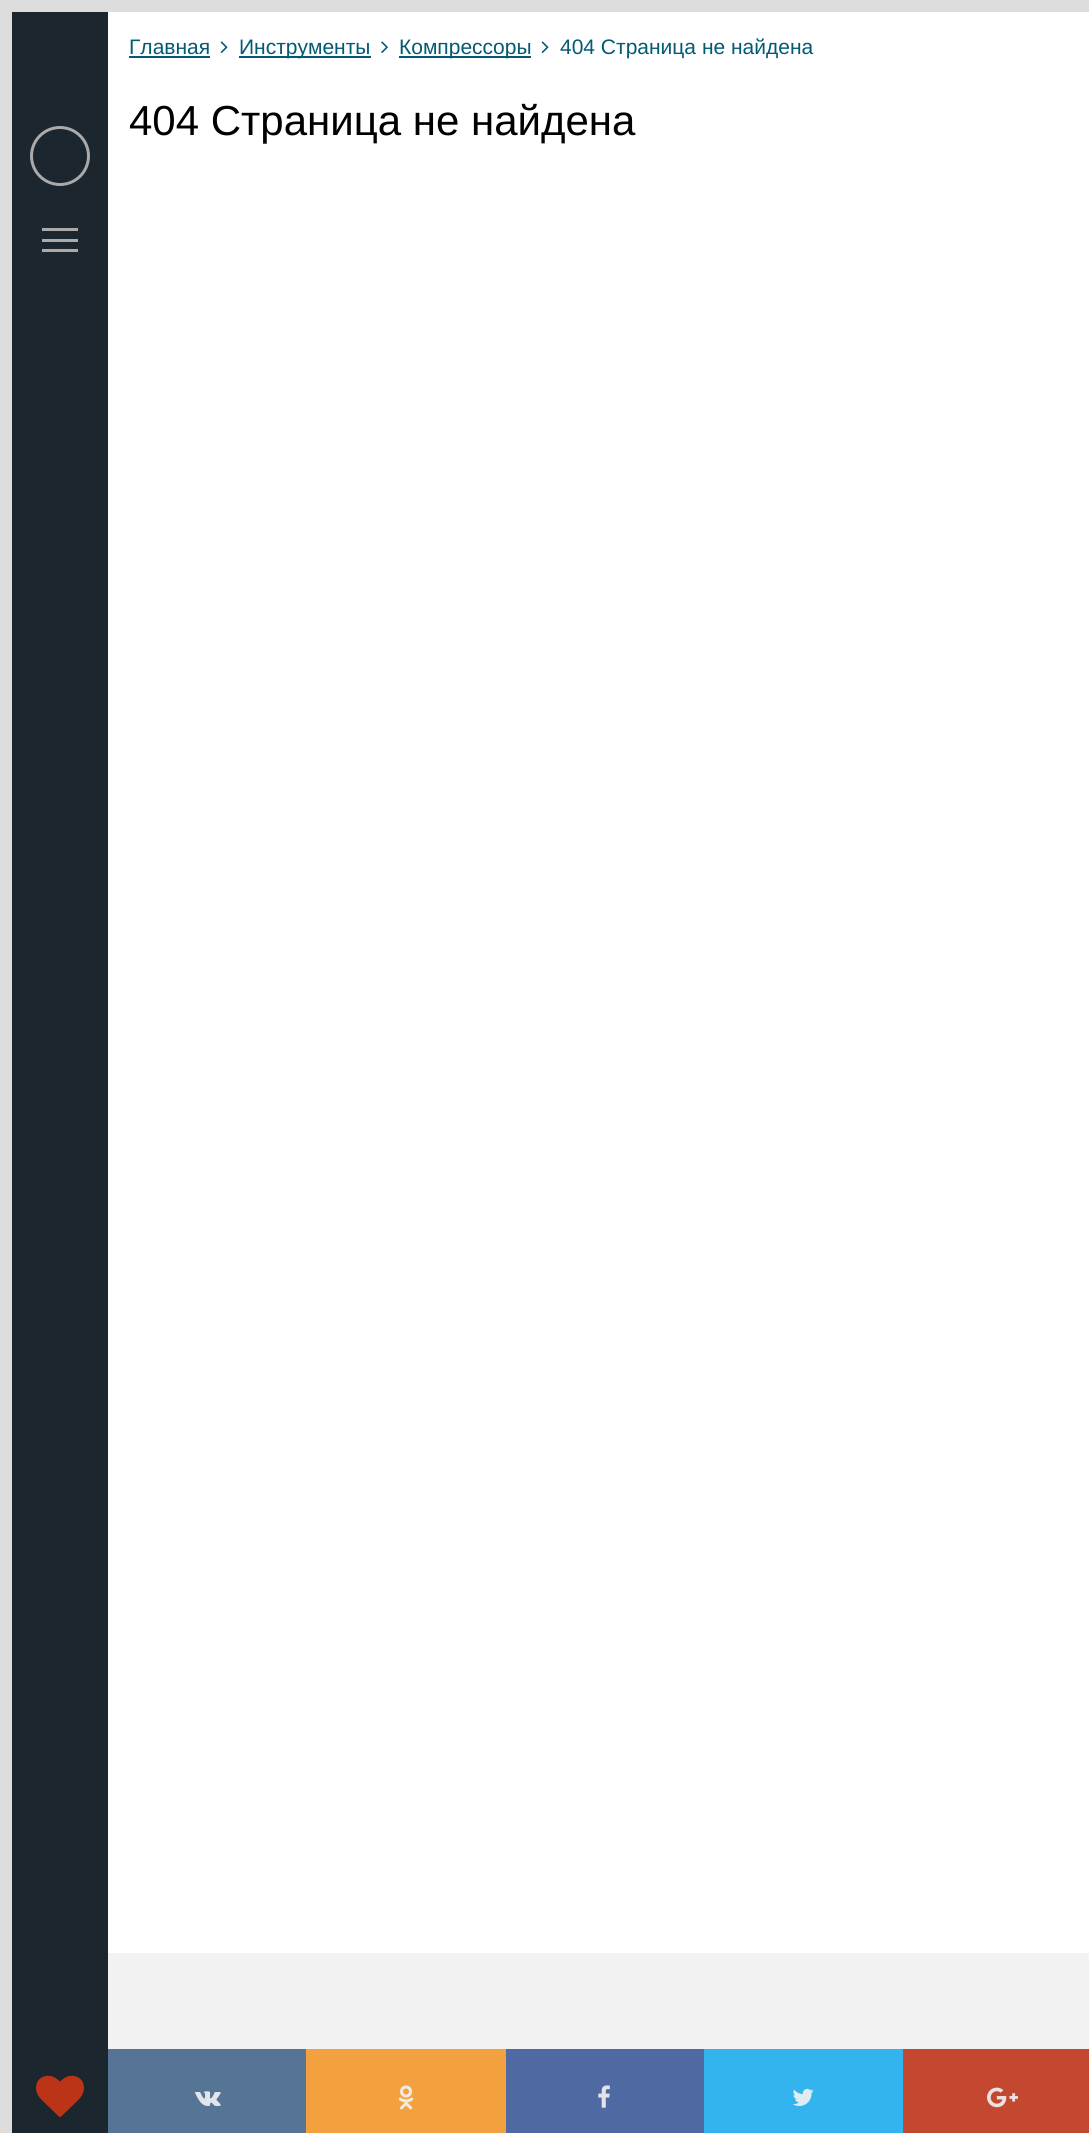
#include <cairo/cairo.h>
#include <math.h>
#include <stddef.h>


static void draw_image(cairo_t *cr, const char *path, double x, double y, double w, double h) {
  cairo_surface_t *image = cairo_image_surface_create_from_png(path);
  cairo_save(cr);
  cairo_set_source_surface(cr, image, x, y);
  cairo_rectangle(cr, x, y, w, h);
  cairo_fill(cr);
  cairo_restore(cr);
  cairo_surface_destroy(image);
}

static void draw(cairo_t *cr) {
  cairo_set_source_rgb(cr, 221 / 255.0, 221 / 255.0, 221 / 255.0);
  cairo_paint(cr);
  cairo_set_source_rgb(cr, 1, 1, 1);
  cairo_rectangle(cr, 108, 12, 981, 1941);
  cairo_fill(cr);
  cairo_set_source_rgb(cr, 28 / 255.0, 38 / 255.0, 47 / 255.0);
  cairo_rectangle(cr, 12, 12, 96, 2121);
  cairo_fill(cr);
  cairo_arc(cr, 60, 156, 28.5, 0, 2 * M_PI);
  cairo_set_source_rgb(cr, 170 / 255.0, 170 / 255.0, 170 / 255.0);
  cairo_set_line_width(cr, 3);
  cairo_stroke(cr);
  cairo_rectangle(cr, 42, 228, 36, 3);
  cairo_fill(cr);
  cairo_rectangle(cr, 42, 239, 36, 3);
  cairo_fill(cr);
  cairo_rectangle(cr, 42, 249, 36, 3);
  cairo_fill(cr);
  draw_image(cr, "images/1.png", 36, 2075, 48, 42);
  cairo_set_source_rgb(cr, 2 / 255.0, 90 / 255.0, 115 / 255.0);
  cairo_rectangle(cr, 129, 56, 81, 2);
  cairo_fill(cr);
  draw_image(cr, "images/2.png", 220, 41, 8, 12);
  cairo_rectangle(cr, 239, 56, 132, 2);
  cairo_fill(cr);
  draw_image(cr, "images/3.png", 381, 41, 7, 12);
  cairo_rectangle(cr, 399, 56, 132, 2);
  cairo_fill(cr);
  draw_image(cr, "images/2.png", 541, 41, 8, 12);
  cairo_set_source_rgb(cr, 242 / 255.0, 242 / 255.0, 242 / 255.0);
  cairo_rectangle(cr, 108, 1953, 981, 96);
  cairo_fill(cr);
  cairo_set_source_rgb(cr, 86 / 255.0, 117 / 255.0, 150 / 255.0);
  cairo_rectangle(cr, 108, 2049, 198, 84);
  cairo_fill(cr);
  draw_image(cr, "images/4.png", 195, 2091, 26, 15);
  cairo_set_source_rgb(cr, 243 / 255.0, 160 / 255.0, 63 / 255.0);
  cairo_rectangle(cr, 306, 2049, 200, 84);
  cairo_fill(cr);
  draw_image(cr, "images/5.png", 398, 2085, 16, 25);
  cairo_set_source_rgb(cr, 79 / 255.0, 106 / 255.0, 162 / 255.0);
  cairo_rectangle(cr, 506, 2049, 198, 84);
  cairo_fill(cr);
  draw_image(cr, "images/6.png", 598, 2085, 12, 23);
  cairo_set_source_rgb(cr, 52 / 255.0, 180 / 255.0, 239 / 255.0);
  cairo_rectangle(cr, 704, 2049, 199, 84);
  cairo_fill(cr);
  draw_image(cr, "images/7.png", 792, 2088, 22, 18);
  cairo_set_source_rgb(cr, 195 / 255.0, 72 / 255.0, 47 / 255.0);
  cairo_rectangle(cr, 903, 2049, 186, 84);
  cairo_fill(cr);
  draw_image(cr, "images/8.png", 987, 2087, 31, 21);
  cairo_select_font_face(cr, "Liberation Sans", CAIRO_FONT_SLANT_NORMAL, CAIRO_FONT_WEIGHT_NORMAL);
  cairo_set_font_size(cr, 21);
  cairo_set_source_rgb(cr, 2 / 255.0, 90 / 255.0, 115 / 255.0);
  cairo_move_to(cr, 129, 54);
  cairo_show_text(cr, "Главная");
  cairo_move_to(cr, 239, 54);
  cairo_show_text(cr, "Инструменты");
  cairo_move_to(cr, 399, 54);
  cairo_show_text(cr, "Компрессоры");
  cairo_move_to(cr, 560, 54);
  cairo_show_text(cr, "404 Страница не найдена");
  cairo_set_font_size(cr, 42);
  cairo_set_source_rgb(cr, 0, 0, 0);
  cairo_move_to(cr, 129, 135);
  cairo_show_text(cr, "404 Страница не найдена");
}

int main(void) {
  cairo_surface_t *surface = cairo_image_surface_create(CAIRO_FORMAT_RGB24, 1089, 2133);
  cairo_t *cr = cairo_create(surface);
  cairo_font_options_t *options = cairo_font_options_create();
  cairo_font_options_set_hint_metrics(options, CAIRO_HINT_METRICS_OFF);
  cairo_font_options_set_hint_style(options, CAIRO_HINT_STYLE_NONE);
  cairo_set_font_options(cr, options);
  cairo_set_miter_limit(cr, 4);
  draw(cr);
  cairo_surface_write_to_png(surface, "out.png");
  cairo_font_options_destroy(options);
  cairo_destroy(cr);
  cairo_surface_destroy(surface);
  return 0;
}
